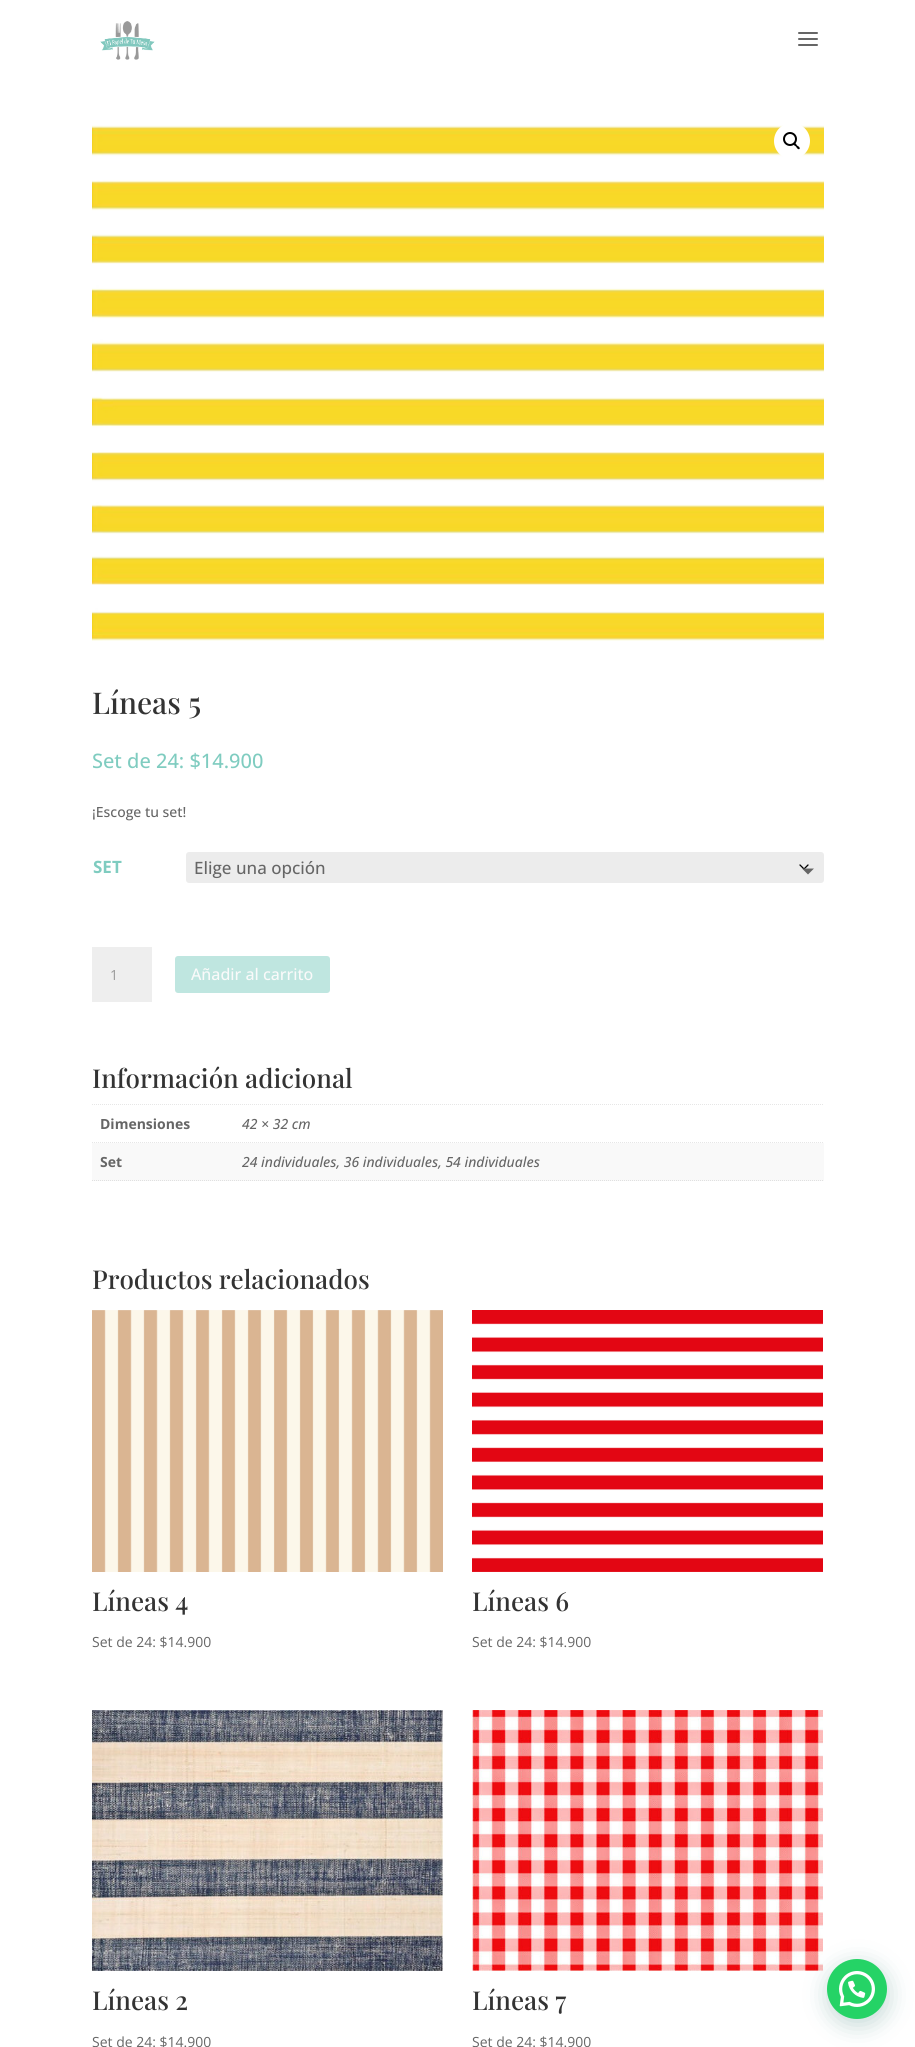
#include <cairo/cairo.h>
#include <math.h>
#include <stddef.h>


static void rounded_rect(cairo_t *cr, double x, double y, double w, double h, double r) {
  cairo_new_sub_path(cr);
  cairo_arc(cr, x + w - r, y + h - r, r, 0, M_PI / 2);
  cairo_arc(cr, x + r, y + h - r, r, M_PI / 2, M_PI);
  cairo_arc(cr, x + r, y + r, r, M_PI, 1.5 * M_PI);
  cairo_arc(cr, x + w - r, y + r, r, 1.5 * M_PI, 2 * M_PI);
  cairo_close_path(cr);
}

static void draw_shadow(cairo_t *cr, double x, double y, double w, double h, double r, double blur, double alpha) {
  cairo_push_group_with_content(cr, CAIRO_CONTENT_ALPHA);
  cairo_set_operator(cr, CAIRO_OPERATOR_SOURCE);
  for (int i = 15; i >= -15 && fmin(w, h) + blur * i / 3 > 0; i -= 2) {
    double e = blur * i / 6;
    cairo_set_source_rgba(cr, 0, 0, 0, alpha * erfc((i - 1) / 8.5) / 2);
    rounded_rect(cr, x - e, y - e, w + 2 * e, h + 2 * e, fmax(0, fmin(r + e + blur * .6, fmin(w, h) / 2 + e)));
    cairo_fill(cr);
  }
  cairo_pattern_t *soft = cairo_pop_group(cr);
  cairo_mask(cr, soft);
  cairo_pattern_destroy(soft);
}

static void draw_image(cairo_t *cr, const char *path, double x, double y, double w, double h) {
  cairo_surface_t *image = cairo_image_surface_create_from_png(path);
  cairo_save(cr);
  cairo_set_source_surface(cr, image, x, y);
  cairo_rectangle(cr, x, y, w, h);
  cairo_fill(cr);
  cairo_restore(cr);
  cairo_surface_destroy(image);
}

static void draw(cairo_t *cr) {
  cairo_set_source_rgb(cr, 1, 1, 1);
  cairo_paint(cr);
  draw_image(cr, "images/1.png", 100, 21, 55, 39);
  draw_image(cr, "images/2.png", 798, 32, 20, 14);
  draw_image(cr, "images/3.png", 92, 125, 732, 516);
  cairo_set_source_rgb(cr, 1, 1, 1);
  cairo_arc(cr, 792, 141, 18, 0, 2 * M_PI);
  cairo_fill(cr);
  cairo_arc(cr, 790, 139, 6, 0, 2 * M_PI);
  cairo_set_source_rgb(cr, 0, 0, 0);
  cairo_stroke(cr);
  cairo_new_path(cr);
  cairo_move_to(cr, 793.5, 143);
  cairo_curve_to(cr, 795, 142, 796.5, 144.5, 797, 145.5);
  cairo_curve_to(cr, 798, 146, 800.5, 147.5, 799.5, 149);
  cairo_curve_to(cr, 798, 150, 796.5, 147.5, 796, 146.5);
  cairo_curve_to(cr, 795, 146, 792.5, 144.5, 793.5, 143);
  cairo_close_path(cr);
  cairo_fill(cr);
  cairo_set_source_rgb(cr, 236 / 255.0, 236 / 255.0, 236 / 255.0);
  rounded_rect(cr, 186, 852, 638, 31, 3);
  cairo_fill(cr);
  cairo_new_path(cr);
  cairo_move_to(cr, 800, 865);
  cairo_line_to(cr, 804, 869);
  cairo_line_to(cr, 808, 865);
  cairo_set_source_rgb(cr, 0, 0, 0);
  cairo_set_line_width(cr, 1.3);
  cairo_set_line_cap(cr, CAIRO_LINE_CAP_ROUND);
  cairo_set_line_join(cr, CAIRO_LINE_JOIN_ROUND);
  cairo_stroke(cr);
  cairo_set_source_rgb(cr, 102 / 255.0, 102 / 255.0, 102 / 255.0);
  cairo_new_path(cr);
  cairo_move_to(cr, 802, 868.5);
  cairo_line_to(cr, 814, 868.5);
  cairo_line_to(cr, 808, 874.5);
  cairo_close_path(cr);
  cairo_fill(cr);
  cairo_set_source_rgb(cr, 238 / 255.0, 238 / 255.0, 238 / 255.0);
  cairo_rectangle(cr, 92, 947, 60, 55);
  cairo_fill(cr);
  cairo_set_source_rgb(cr, 191 / 255.0, 230 / 255.0, 224 / 255.0);
  rounded_rect(cr, 175, 956, 155, 37, 3);
  cairo_fill(cr);
  cairo_new_path(cr);
  cairo_move_to(cr, 92, 1104.5);
  cairo_line_to(cr, 824, 1104.5);
  cairo_set_source_rgb(cr, 230 / 255.0, 230 / 255.0, 230 / 255.0);
  cairo_set_line_width(cr, 1);
  cairo_set_line_cap(cr, CAIRO_LINE_CAP_BUTT);
  cairo_set_line_join(cr, CAIRO_LINE_JOIN_MITER);
  cairo_set_dash(cr, (double[]){1, 1}, 2, 0);
  cairo_stroke(cr);
  cairo_new_path(cr);
  cairo_move_to(cr, 92, 1142.5);
  cairo_line_to(cr, 242, 1142.5);
  cairo_stroke(cr);
  cairo_new_path(cr);
  cairo_move_to(cr, 242, 1142.5);
  cairo_line_to(cr, 824, 1142.5);
  cairo_stroke(cr);
  cairo_set_source_rgb(cr, 249 / 255.0, 249 / 255.0, 249 / 255.0);
  cairo_rectangle(cr, 92, 1143, 732, 38);
  cairo_fill(cr);
  cairo_new_path(cr);
  cairo_move_to(cr, 92, 1180.5);
  cairo_line_to(cr, 242, 1180.5);
  cairo_set_source_rgb(cr, 224 / 255.0, 224 / 255.0, 224 / 255.0);
  cairo_stroke(cr);
  cairo_new_path(cr);
  cairo_move_to(cr, 242, 1180.5);
  cairo_line_to(cr, 824, 1180.5);
  cairo_stroke(cr);
  draw_image(cr, "images/4.png", 92, 1310, 351, 262);
  draw_image(cr, "images/5.png", 472, 1310, 351, 262);
  draw_image(cr, "images/6.png", 92, 1710, 351, 261);
  draw_image(cr, "images/7.png", 472, 1710, 351, 261);
  cairo_set_source_rgb(cr, 7 / 255.0, 94 / 255.0, 84 / 255.0);
  draw_shadow(cr, 828, 1965, 60, 60, 30, 12, 0.24);
  cairo_set_source_rgb(cr, 37 / 255.0, 211 / 255.0, 102 / 255.0);
  cairo_arc(cr, 857, 1989, 30, 0, 2 * M_PI);
  cairo_fill(cr);
  draw_image(cr, "images/8.png", 839, 1971, 36, 36);
  cairo_select_font_face(cr, "Playfair Display Medium", CAIRO_FONT_SLANT_NORMAL, CAIRO_FONT_WEIGHT_NORMAL);
  cairo_set_font_size(cr, 30);
  cairo_set_source_rgb(cr, 51 / 255.0, 51 / 255.0, 51 / 255.0);
  cairo_move_to(cr, 92, 714);
  cairo_show_text(cr, "Líneas 5");
  cairo_select_font_face(cr, "Open Sans Medium", CAIRO_FONT_SLANT_NORMAL, CAIRO_FONT_WEIGHT_NORMAL);
  cairo_set_font_size(cr, 20);
  cairo_set_source_rgb(cr, 127 / 255.0, 204 / 255.0, 192 / 255.0);
  cairo_move_to(cr, 92, 768);
  cairo_show_text(cr, "Set de 24: $14.900");
  cairo_set_font_size(cr, 14);
  cairo_set_source_rgb(cr, 102 / 255.0, 102 / 255.0, 102 / 255.0);
  cairo_move_to(cr, 92, 817);
  cairo_show_text(cr, "¡Escoge tu set!");
  cairo_select_font_face(cr, "Open Sans", CAIRO_FONT_SLANT_NORMAL, CAIRO_FONT_WEIGHT_BOLD);
  cairo_set_font_size(cr, 17);
  cairo_set_source_rgb(cr, 127 / 255.0, 204 / 255.0, 192 / 255.0);
  cairo_move_to(cr, 93, 873);
  cairo_show_text(cr, "SET");
  cairo_select_font_face(cr, "Open Sans Medium", CAIRO_FONT_SLANT_NORMAL, CAIRO_FONT_WEIGHT_NORMAL);
  cairo_set_source_rgb(cr, 102 / 255.0, 102 / 255.0, 102 / 255.0);
  cairo_move_to(cr, 194, 874);
  cairo_show_text(cr, "Elige una opción");
  cairo_select_font_face(cr, "Open Sans", CAIRO_FONT_SLANT_NORMAL, CAIRO_FONT_WEIGHT_NORMAL);
  cairo_set_font_size(cr, 14);
  cairo_set_source_rgb(cr, 153 / 255.0, 153 / 255.0, 153 / 255.0);
  cairo_move_to(cr, 110, 980);
  cairo_show_text(cr, "1");
  cairo_select_font_face(cr, "Open Sans Medium", CAIRO_FONT_SLANT_NORMAL, CAIRO_FONT_WEIGHT_NORMAL);
  cairo_set_font_size(cr, 16);
  cairo_set_source_rgb(cr, 250 / 255.0, 250 / 255.0, 250 / 255.0);
  cairo_move_to(cr, 191, 980);
  cairo_show_text(cr, "Añadir al carrito");
  cairo_select_font_face(cr, "Playfair Display Medium", CAIRO_FONT_SLANT_NORMAL, CAIRO_FONT_WEIGHT_NORMAL);
  cairo_set_font_size(cr, 26);
  cairo_set_source_rgb(cr, 51 / 255.0, 51 / 255.0, 51 / 255.0);
  cairo_move_to(cr, 92, 1088);
  cairo_show_text(cr, "Información adicional");
  cairo_select_font_face(cr, "Open Sans", CAIRO_FONT_SLANT_NORMAL, CAIRO_FONT_WEIGHT_BOLD);
  cairo_set_font_size(cr, 14);
  cairo_set_source_rgb(cr, 102 / 255.0, 102 / 255.0, 102 / 255.0);
  cairo_move_to(cr, 100, 1129);
  cairo_show_text(cr, "Dimensiones");
  cairo_select_font_face(cr, "Open Sans Medium", CAIRO_FONT_SLANT_ITALIC, CAIRO_FONT_WEIGHT_NORMAL);
  cairo_move_to(cr, 242, 1129);
  cairo_show_text(cr, "42 × 32 cm");
  cairo_select_font_face(cr, "Open Sans", CAIRO_FONT_SLANT_NORMAL, CAIRO_FONT_WEIGHT_BOLD);
  cairo_move_to(cr, 100, 1167);
  cairo_show_text(cr, "Set");
  cairo_select_font_face(cr, "Open Sans Medium", CAIRO_FONT_SLANT_ITALIC, CAIRO_FONT_WEIGHT_NORMAL);
  cairo_move_to(cr, 242, 1167);
  cairo_show_text(cr, "24 individuales, 36 individuales, 54 individuales");
  cairo_select_font_face(cr, "Playfair Display Medium", CAIRO_FONT_SLANT_NORMAL, CAIRO_FONT_WEIGHT_NORMAL);
  cairo_set_font_size(cr, 26);
  cairo_set_source_rgb(cr, 51 / 255.0, 51 / 255.0, 51 / 255.0);
  cairo_move_to(cr, 92, 1289);
  cairo_show_text(cr, "Productos relacionados");
  cairo_move_to(cr, 92, 1611);
  cairo_show_text(cr, "Líneas 4");
  cairo_select_font_face(cr, "Open Sans", CAIRO_FONT_SLANT_NORMAL, CAIRO_FONT_WEIGHT_NORMAL);
  cairo_set_font_size(cr, 14);
  cairo_set_source_rgb(cr, 102 / 255.0, 102 / 255.0, 102 / 255.0);
  cairo_move_to(cr, 92, 1647);
  cairo_show_text(cr, "Set de 24: $14.900");
  cairo_select_font_face(cr, "Playfair Display Medium", CAIRO_FONT_SLANT_NORMAL, CAIRO_FONT_WEIGHT_NORMAL);
  cairo_set_font_size(cr, 26);
  cairo_set_source_rgb(cr, 51 / 255.0, 51 / 255.0, 51 / 255.0);
  cairo_move_to(cr, 472, 1611);
  cairo_show_text(cr, "Líneas 6");
  cairo_select_font_face(cr, "Open Sans", CAIRO_FONT_SLANT_NORMAL, CAIRO_FONT_WEIGHT_NORMAL);
  cairo_set_font_size(cr, 14);
  cairo_set_source_rgb(cr, 102 / 255.0, 102 / 255.0, 102 / 255.0);
  cairo_move_to(cr, 472, 1647);
  cairo_show_text(cr, "Set de 24: $14.900");
  cairo_select_font_face(cr, "Playfair Display Medium", CAIRO_FONT_SLANT_NORMAL, CAIRO_FONT_WEIGHT_NORMAL);
  cairo_set_font_size(cr, 26);
  cairo_set_source_rgb(cr, 51 / 255.0, 51 / 255.0, 51 / 255.0);
  cairo_move_to(cr, 92, 2010);
  cairo_show_text(cr, "Líneas 2");
  cairo_select_font_face(cr, "Open Sans", CAIRO_FONT_SLANT_NORMAL, CAIRO_FONT_WEIGHT_NORMAL);
  cairo_set_font_size(cr, 14);
  cairo_set_source_rgb(cr, 102 / 255.0, 102 / 255.0, 102 / 255.0);
  cairo_move_to(cr, 92, 2047);
  cairo_show_text(cr, "Set de 24: $14.900");
  cairo_select_font_face(cr, "Playfair Display Medium", CAIRO_FONT_SLANT_NORMAL, CAIRO_FONT_WEIGHT_NORMAL);
  cairo_set_font_size(cr, 26);
  cairo_set_source_rgb(cr, 51 / 255.0, 51 / 255.0, 51 / 255.0);
  cairo_move_to(cr, 472, 2010);
  cairo_show_text(cr, "Líneas 7");
  cairo_select_font_face(cr, "Open Sans", CAIRO_FONT_SLANT_NORMAL, CAIRO_FONT_WEIGHT_NORMAL);
  cairo_set_font_size(cr, 14);
  cairo_set_source_rgb(cr, 102 / 255.0, 102 / 255.0, 102 / 255.0);
  cairo_move_to(cr, 472, 2047);
  cairo_show_text(cr, "Set de 24: $14.900");
}

int main(void) {
  cairo_surface_t *surface = cairo_image_surface_create(CAIRO_FORMAT_RGB24, 915, 2047);
  cairo_t *cr = cairo_create(surface);
  cairo_font_options_t *options = cairo_font_options_create();
  cairo_font_options_set_hint_metrics(options, CAIRO_HINT_METRICS_OFF);
  cairo_font_options_set_hint_style(options, CAIRO_HINT_STYLE_NONE);
  cairo_set_font_options(cr, options);
  cairo_set_miter_limit(cr, 4);
  draw(cr);
  cairo_surface_write_to_png(surface, "out.png");
  cairo_font_options_destroy(options);
  cairo_destroy(cr);
  cairo_surface_destroy(surface);
  return 0;
}
